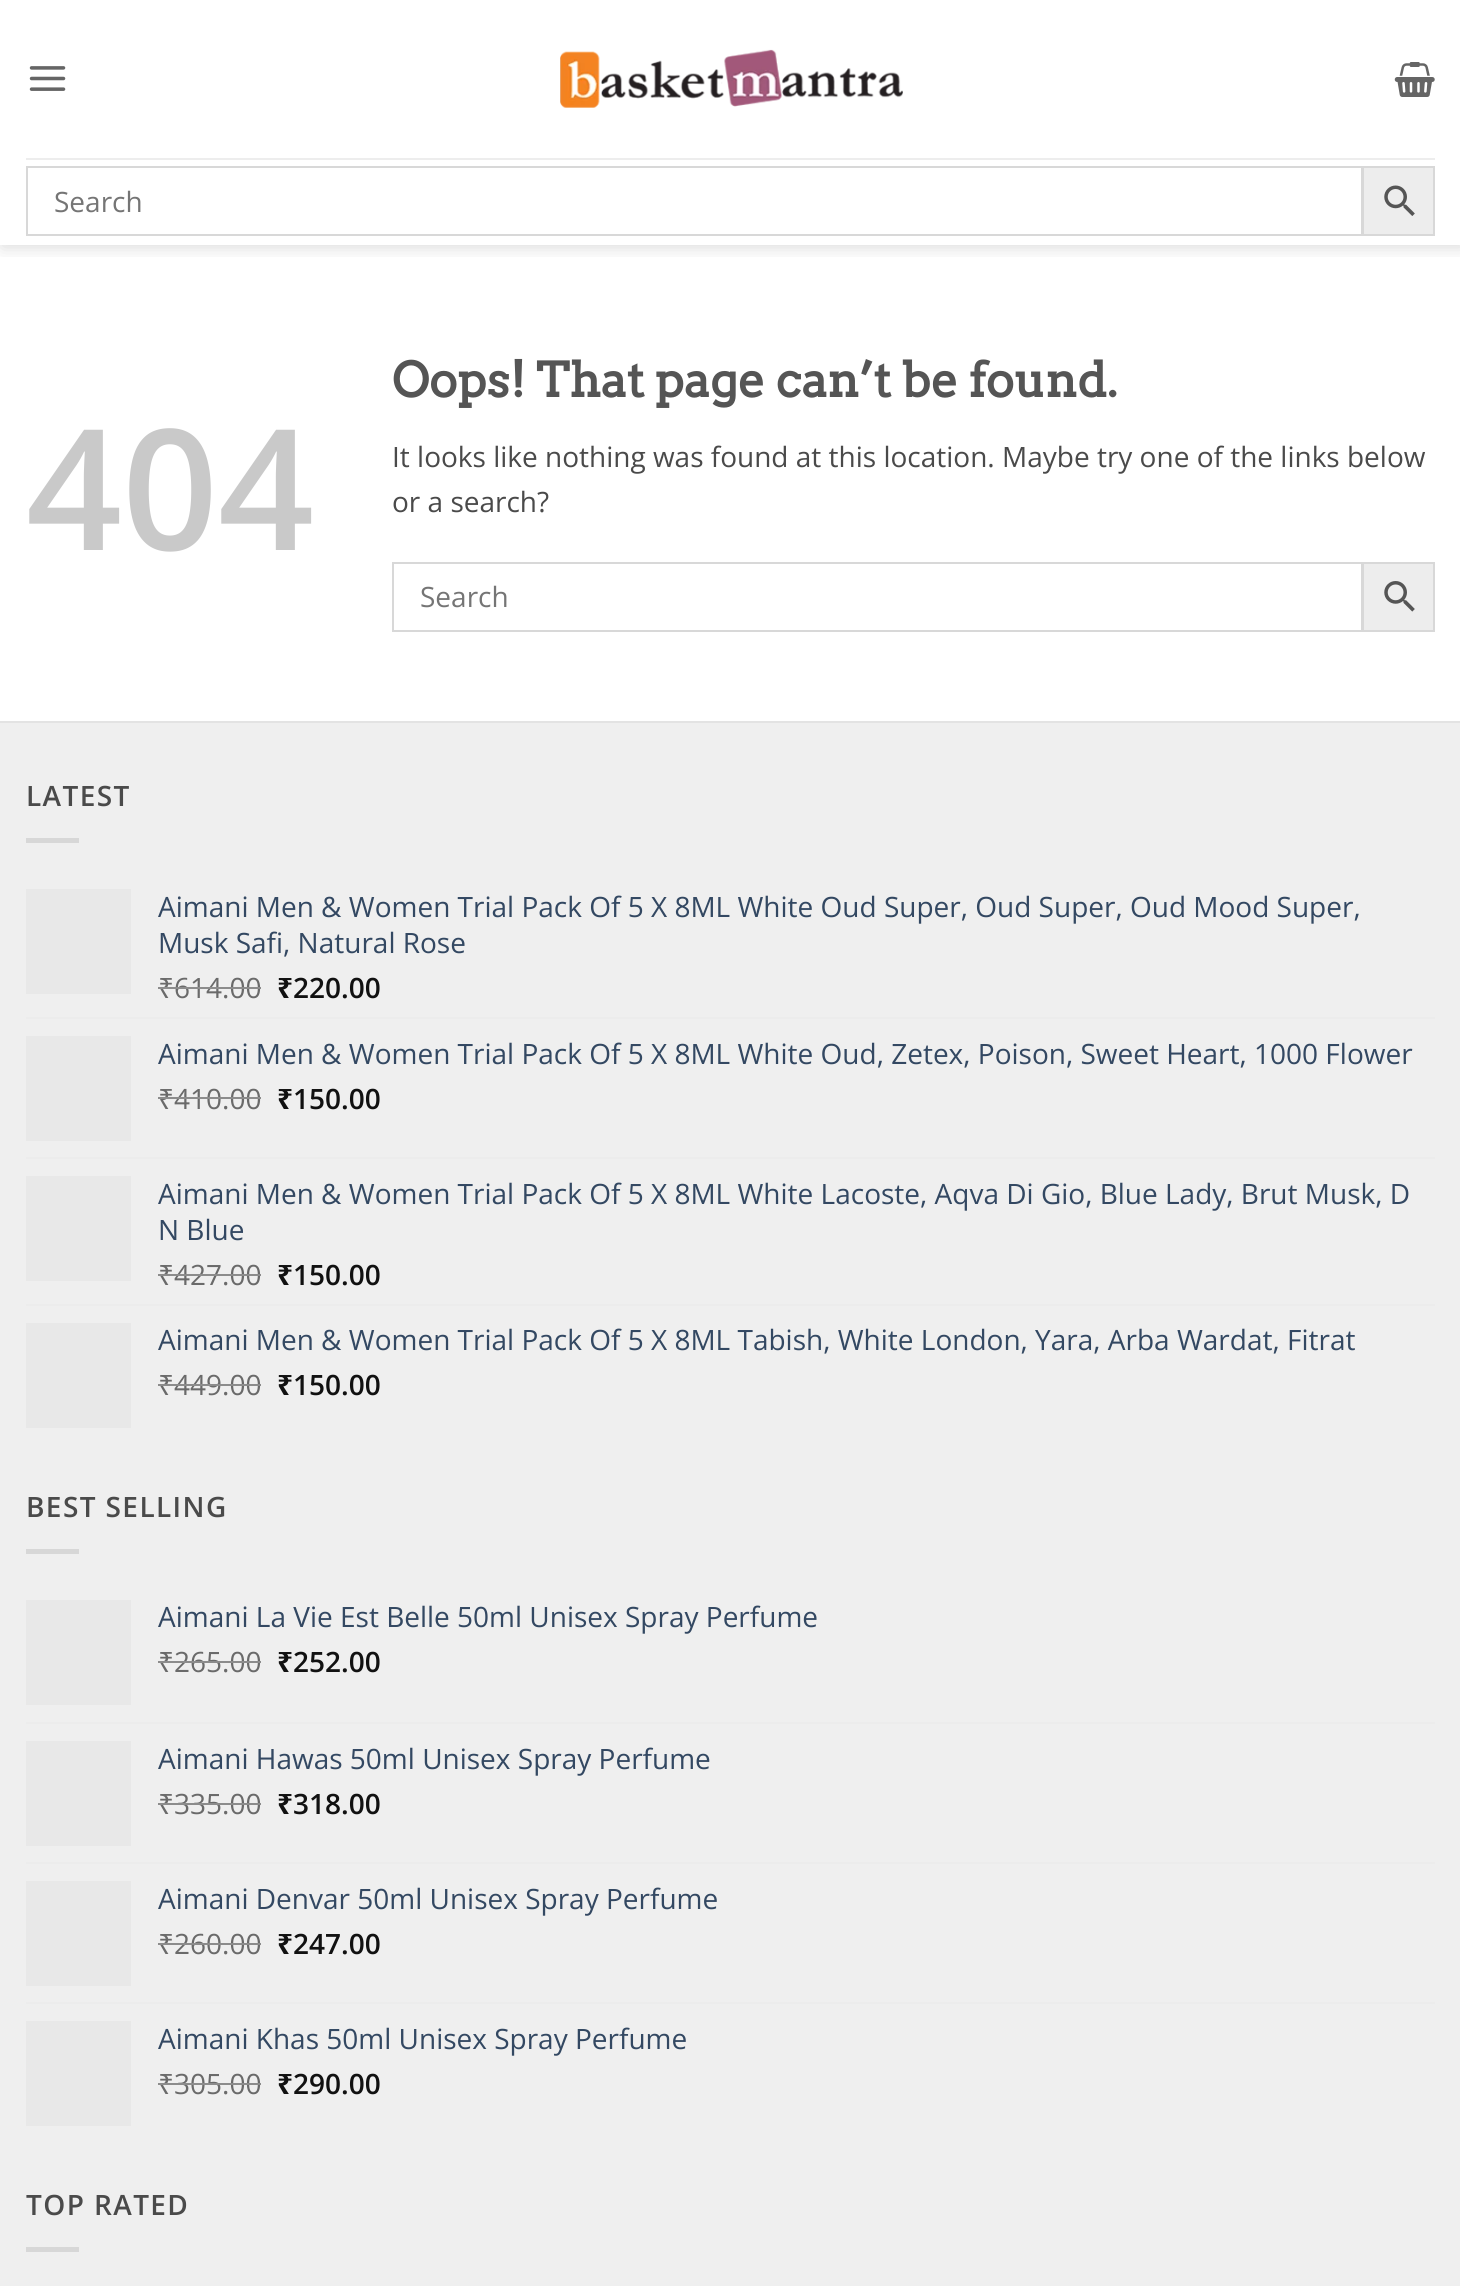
#include <cairo/cairo.h>
#include <math.h>
#include <stddef.h>


static void draw_spaced(cairo_t *cr, double x, double y, const char *s, double letter, double word) {
  cairo_move_to(cr, x, y);
  while (*s) {
    char ch[5] = {0};
    int n = 0;
    do ch[n++] = *s++; while ((*s & 0xC0) == 0x80);
    cairo_show_text(cr, ch);
    cairo_rel_move_to(cr, letter + word * (*ch == ' '), 0);
  }
}

static void rounded_rect(cairo_t *cr, double x, double y, double w, double h, double r) {
  cairo_new_sub_path(cr);
  cairo_arc(cr, x + w - r, y + h - r, r, 0, M_PI / 2);
  cairo_arc(cr, x + r, y + h - r, r, M_PI / 2, M_PI);
  cairo_arc(cr, x + r, y + r, r, M_PI, 1.5 * M_PI);
  cairo_arc(cr, x + w - r, y + r, r, 1.5 * M_PI, 2 * M_PI);
  cairo_close_path(cr);
}

static void draw_shadow(cairo_t *cr, double x, double y, double w, double h, double r, double blur, double alpha) {
  cairo_push_group_with_content(cr, CAIRO_CONTENT_ALPHA);
  cairo_set_operator(cr, CAIRO_OPERATOR_SOURCE);
  for (int i = 15; i >= -15 && fmin(w, h) + blur * i / 3 > 0; i -= 2) {
    double e = blur * i / 6;
    cairo_set_source_rgba(cr, 0, 0, 0, alpha * erfc((i - 1) / 8.5) / 2);
    rounded_rect(cr, x - e, y - e, w + 2 * e, h + 2 * e, fmax(0, fmin(r + e + blur * .6, fmin(w, h) / 2 + e)));
    cairo_fill(cr);
  }
  cairo_pattern_t *soft = cairo_pop_group(cr);
  cairo_mask(cr, soft);
  cairo_pattern_destroy(soft);
}

static void draw_image(cairo_t *cr, const char *path, double x, double y, double w, double h) {
  cairo_surface_t *image = cairo_image_surface_create_from_png(path);
  cairo_save(cr);
  cairo_set_source_surface(cr, image, x, y);
  cairo_rectangle(cr, x, y, w, h);
  cairo_fill(cr);
  cairo_restore(cr);
  cairo_surface_destroy(image);
}

static void draw(cairo_t *cr) {
  cairo_set_source_rgb(cr, 1, 1, 1);
  cairo_paint(cr);
  cairo_save(cr);
  cairo_rectangle(cr, 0, 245, 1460, 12);
  cairo_clip(cr);
  cairo_set_source_rgb(cr, 0, 0, 0);
  draw_shadow(cr, 2, 2, 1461, 245, 0, 9, 0.15);
  cairo_restore(cr);
  draw_image(cr, "images/1.png", 29, 66, 37, 25);
  draw_image(cr, "images/2.png", 560, 49, 343, 59);
  draw_image(cr, "images/3.png", 1394, 62, 41, 35);
  cairo_set_source_rgb(cr, 237 / 255.0, 237 / 255.0, 237 / 255.0);
  cairo_rectangle(cr, 26, 158, 1409, 2);
  cairo_fill(cr);
  cairo_rectangle(cr, 1363, 167, 71, 68);
  cairo_fill_preserve(cr);
  cairo_set_source_rgb(cr, 216 / 255.0, 216 / 255.0, 216 / 255.0);
  cairo_stroke(cr);
  cairo_rectangle(cr, 27, 167, 1335, 68);
  cairo_stroke(cr);
  draw_image(cr, "images/4.png", 1384, 185, 31, 31);
  cairo_set_source_rgb(cr, 237 / 255.0, 237 / 255.0, 237 / 255.0);
  cairo_rectangle(cr, 1363, 563, 71, 68);
  cairo_fill_preserve(cr);
  cairo_set_source_rgb(cr, 216 / 255.0, 216 / 255.0, 216 / 255.0);
  cairo_stroke(cr);
  cairo_rectangle(cr, 393, 563, 969, 68);
  cairo_stroke(cr);
  draw_image(cr, "images/5.png", 1384, 581, 31, 31);
  cairo_set_source_rgb(cr, 239 / 255.0, 239 / 255.0, 239 / 255.0);
  cairo_rectangle(cr, 0, 723, 1460, 1563);
  cairo_fill(cr);
  cairo_set_source_rgb(cr, 227 / 255.0, 227 / 255.0, 227 / 255.0);
  cairo_rectangle(cr, 0, 721, 1460, 2);
  cairo_fill(cr);
  cairo_set_source_rgb(cr, 215 / 255.0, 215 / 255.0, 215 / 255.0);
  cairo_rectangle(cr, 26, 838, 53, 5);
  cairo_fill(cr);
  cairo_set_source_rgb(cr, 232 / 255.0, 232 / 255.0, 232 / 255.0);
  cairo_rectangle(cr, 26, 889, 105, 105);
  cairo_fill(cr);
  cairo_set_source_rgb(cr, 236 / 255.0, 236 / 255.0, 236 / 255.0);
  cairo_rectangle(cr, 26, 1017, 1409, 2);
  cairo_fill(cr);
  cairo_set_source_rgb(cr, 232 / 255.0, 232 / 255.0, 232 / 255.0);
  cairo_rectangle(cr, 26, 1036, 105, 105);
  cairo_fill(cr);
  cairo_set_source_rgb(cr, 236 / 255.0, 236 / 255.0, 236 / 255.0);
  cairo_rectangle(cr, 26, 1157, 1409, 2);
  cairo_fill(cr);
  cairo_set_source_rgb(cr, 232 / 255.0, 232 / 255.0, 232 / 255.0);
  cairo_rectangle(cr, 26, 1176, 105, 105);
  cairo_fill(cr);
  cairo_set_source_rgb(cr, 236 / 255.0, 236 / 255.0, 236 / 255.0);
  cairo_rectangle(cr, 26, 1304, 1409, 2);
  cairo_fill(cr);
  cairo_set_source_rgb(cr, 232 / 255.0, 232 / 255.0, 232 / 255.0);
  cairo_rectangle(cr, 26, 1323, 105, 105);
  cairo_fill(cr);
  cairo_set_source_rgb(cr, 215 / 255.0, 215 / 255.0, 215 / 255.0);
  cairo_rectangle(cr, 26, 1549, 53, 5);
  cairo_fill(cr);
  cairo_set_source_rgb(cr, 232 / 255.0, 232 / 255.0, 232 / 255.0);
  cairo_rectangle(cr, 26, 1600, 105, 105);
  cairo_fill(cr);
  cairo_set_source_rgb(cr, 236 / 255.0, 236 / 255.0, 236 / 255.0);
  cairo_rectangle(cr, 26, 1722, 1409, 2);
  cairo_fill(cr);
  cairo_set_source_rgb(cr, 232 / 255.0, 232 / 255.0, 232 / 255.0);
  cairo_rectangle(cr, 26, 1741, 105, 105);
  cairo_fill(cr);
  cairo_set_source_rgb(cr, 236 / 255.0, 236 / 255.0, 236 / 255.0);
  cairo_rectangle(cr, 26, 1862, 1409, 2);
  cairo_fill(cr);
  cairo_set_source_rgb(cr, 232 / 255.0, 232 / 255.0, 232 / 255.0);
  cairo_rectangle(cr, 26, 1881, 105, 105);
  cairo_fill(cr);
  cairo_set_source_rgb(cr, 236 / 255.0, 236 / 255.0, 236 / 255.0);
  cairo_rectangle(cr, 26, 2002, 1409, 2);
  cairo_fill(cr);
  cairo_set_source_rgb(cr, 232 / 255.0, 232 / 255.0, 232 / 255.0);
  cairo_rectangle(cr, 26, 2021, 105, 105);
  cairo_fill(cr);
  cairo_set_source_rgb(cr, 215 / 255.0, 215 / 255.0, 215 / 255.0);
  cairo_rectangle(cr, 26, 2247, 53, 5);
  cairo_fill(cr);
  cairo_select_font_face(cr, "Open Sans", CAIRO_FONT_SLANT_NORMAL, CAIRO_FONT_WEIGHT_NORMAL);
  cairo_set_font_size(cr, 28);
  cairo_set_source_rgb(cr, 117 / 255.0, 117 / 255.0, 117 / 255.0);
  cairo_move_to(cr, 54, 212);
  cairo_show_text(cr, "Search");
  cairo_select_font_face(cr, "Open Sans SemiBold", CAIRO_FONT_SLANT_NORMAL, CAIRO_FONT_WEIGHT_NORMAL);
  cairo_set_font_size(cr, 168);
  cairo_set_source_rgb(cr, 201 / 255.0, 201 / 255.0, 201 / 255.0);
  cairo_move_to(cr, 26, 550);
  cairo_show_text(cr, "404");
  cairo_select_font_face(cr, "Arvo", CAIRO_FONT_SLANT_NORMAL, CAIRO_FONT_WEIGHT_BOLD);
  cairo_set_font_size(cr, 47.6);
  cairo_set_source_rgb(cr, 85 / 255.0, 85 / 255.0, 85 / 255.0);
  cairo_move_to(cr, 392, 397);
  cairo_show_text(cr, "Oops! That page can’t be found.");
  cairo_select_font_face(cr, "Open Sans", CAIRO_FONT_SLANT_NORMAL, CAIRO_FONT_WEIGHT_NORMAL);
  cairo_set_font_size(cr, 28);
  cairo_set_source_rgb(cr, 74 / 255.0, 74 / 255.0, 74 / 255.0);
  cairo_move_to(cr, 392, 467);
  cairo_show_text(cr, "It looks like nothing was found at this location. Maybe try one of the links below");
  cairo_move_to(cr, 392, 512);
  cairo_show_text(cr, "or a search?");
  cairo_set_source_rgb(cr, 117 / 255.0, 117 / 255.0, 117 / 255.0);
  cairo_move_to(cr, 420, 607);
  cairo_show_text(cr, "Search");
  cairo_select_font_face(cr, "Open Sans SemiBold", CAIRO_FONT_SLANT_NORMAL, CAIRO_FONT_WEIGHT_NORMAL);
  cairo_set_source_rgb(cr, 74 / 255.0, 74 / 255.0, 74 / 255.0);
  draw_spaced(cr, 26, 806, "LATEST", 1.4, 0);
  cairo_select_font_face(cr, "Open Sans", CAIRO_FONT_SLANT_NORMAL, CAIRO_FONT_WEIGHT_NORMAL);
  cairo_set_source_rgb(cr, 51 / 255.0, 72 / 255.0, 98 / 255.0);
  cairo_move_to(cr, 158, 917);
  cairo_show_text(cr, "Aimani Men & Women Trial Pack Of 5 X 8ML White Oud Super, Oud Super, Oud Mood Super,");
  cairo_move_to(cr, 158, 953);
  cairo_show_text(cr, "Musk Safi, Natural Rose");
  cairo_select_font_face(cr, "Noto Sans", CAIRO_FONT_SLANT_NORMAL, CAIRO_FONT_WEIGHT_NORMAL);
  cairo_set_source_rgb(cr, 106 / 255.0, 106 / 255.0, 106 / 255.0);
  cairo_move_to(cr, 158, 998);
  cairo_show_text(cr, "₹");
  cairo_set_source_rgb(cr, 140 / 255.0, 140 / 255.0, 140 / 255.0);
  cairo_rectangle(cr, 158, 987, 15, 2);
  cairo_fill(cr);
  cairo_select_font_face(cr, "Open Sans", CAIRO_FONT_SLANT_NORMAL, CAIRO_FONT_WEIGHT_NORMAL);
  cairo_set_source_rgb(cr, 106 / 255.0, 106 / 255.0, 106 / 255.0);
  cairo_move_to(cr, 174, 998);
  cairo_show_text(cr, "614.00");
  cairo_set_source_rgb(cr, 140 / 255.0, 140 / 255.0, 140 / 255.0);
  cairo_rectangle(cr, 173, 987, 88, 2);
  cairo_fill(cr);
  cairo_select_font_face(cr, "Noto Sans", CAIRO_FONT_SLANT_NORMAL, CAIRO_FONT_WEIGHT_BOLD);
  cairo_set_source_rgb(cr, 17 / 255.0, 17 / 255.0, 17 / 255.0);
  cairo_move_to(cr, 277, 998);
  cairo_show_text(cr, "₹");
  cairo_select_font_face(cr, "Open Sans SemiBold", CAIRO_FONT_SLANT_NORMAL, CAIRO_FONT_WEIGHT_NORMAL);
  cairo_move_to(cr, 293, 998);
  cairo_show_text(cr, "220.00");
  cairo_select_font_face(cr, "Open Sans", CAIRO_FONT_SLANT_NORMAL, CAIRO_FONT_WEIGHT_NORMAL);
  cairo_set_source_rgb(cr, 51 / 255.0, 72 / 255.0, 98 / 255.0);
  cairo_move_to(cr, 158, 1064);
  cairo_show_text(cr, "Aimani Men & Women Trial Pack Of 5 X 8ML White Oud, Zetex, Poison, Sweet Heart, 1000 Flower");
  cairo_select_font_face(cr, "Noto Sans", CAIRO_FONT_SLANT_NORMAL, CAIRO_FONT_WEIGHT_NORMAL);
  cairo_set_source_rgb(cr, 106 / 255.0, 106 / 255.0, 106 / 255.0);
  cairo_move_to(cr, 158, 1109);
  cairo_show_text(cr, "₹");
  cairo_set_source_rgb(cr, 140 / 255.0, 140 / 255.0, 140 / 255.0);
  cairo_rectangle(cr, 158, 1097, 15, 2);
  cairo_fill(cr);
  cairo_select_font_face(cr, "Open Sans", CAIRO_FONT_SLANT_NORMAL, CAIRO_FONT_WEIGHT_NORMAL);
  cairo_set_source_rgb(cr, 106 / 255.0, 106 / 255.0, 106 / 255.0);
  cairo_move_to(cr, 174, 1109);
  cairo_show_text(cr, "410.00");
  cairo_set_source_rgb(cr, 140 / 255.0, 140 / 255.0, 140 / 255.0);
  cairo_rectangle(cr, 173, 1097, 88, 2);
  cairo_fill(cr);
  cairo_select_font_face(cr, "Noto Sans", CAIRO_FONT_SLANT_NORMAL, CAIRO_FONT_WEIGHT_BOLD);
  cairo_set_source_rgb(cr, 17 / 255.0, 17 / 255.0, 17 / 255.0);
  cairo_move_to(cr, 277, 1109);
  cairo_show_text(cr, "₹");
  cairo_select_font_face(cr, "Open Sans SemiBold", CAIRO_FONT_SLANT_NORMAL, CAIRO_FONT_WEIGHT_NORMAL);
  cairo_move_to(cr, 293, 1109);
  cairo_show_text(cr, "150.00");
  cairo_select_font_face(cr, "Open Sans", CAIRO_FONT_SLANT_NORMAL, CAIRO_FONT_WEIGHT_NORMAL);
  cairo_set_source_rgb(cr, 51 / 255.0, 72 / 255.0, 98 / 255.0);
  cairo_move_to(cr, 158, 1204);
  cairo_show_text(cr, "Aimani Men & Women Trial Pack Of 5 X 8ML White Lacoste, Aqva Di Gio, Blue Lady, Brut Musk, D");
  cairo_move_to(cr, 158, 1240);
  cairo_show_text(cr, "N Blue");
  cairo_select_font_face(cr, "Noto Sans", CAIRO_FONT_SLANT_NORMAL, CAIRO_FONT_WEIGHT_NORMAL);
  cairo_set_source_rgb(cr, 106 / 255.0, 106 / 255.0, 106 / 255.0);
  cairo_move_to(cr, 158, 1285);
  cairo_show_text(cr, "₹");
  cairo_set_source_rgb(cr, 140 / 255.0, 140 / 255.0, 140 / 255.0);
  cairo_rectangle(cr, 158, 1274, 15, 2);
  cairo_fill(cr);
  cairo_select_font_face(cr, "Open Sans", CAIRO_FONT_SLANT_NORMAL, CAIRO_FONT_WEIGHT_NORMAL);
  cairo_set_source_rgb(cr, 106 / 255.0, 106 / 255.0, 106 / 255.0);
  cairo_move_to(cr, 174, 1285);
  cairo_show_text(cr, "427.00");
  cairo_set_source_rgb(cr, 140 / 255.0, 140 / 255.0, 140 / 255.0);
  cairo_rectangle(cr, 173, 1274, 88, 2);
  cairo_fill(cr);
  cairo_select_font_face(cr, "Noto Sans", CAIRO_FONT_SLANT_NORMAL, CAIRO_FONT_WEIGHT_BOLD);
  cairo_set_source_rgb(cr, 17 / 255.0, 17 / 255.0, 17 / 255.0);
  cairo_move_to(cr, 277, 1285);
  cairo_show_text(cr, "₹");
  cairo_select_font_face(cr, "Open Sans SemiBold", CAIRO_FONT_SLANT_NORMAL, CAIRO_FONT_WEIGHT_NORMAL);
  cairo_move_to(cr, 293, 1285);
  cairo_show_text(cr, "150.00");
  cairo_select_font_face(cr, "Open Sans", CAIRO_FONT_SLANT_NORMAL, CAIRO_FONT_WEIGHT_NORMAL);
  cairo_set_source_rgb(cr, 51 / 255.0, 72 / 255.0, 98 / 255.0);
  cairo_move_to(cr, 158, 1350);
  cairo_show_text(cr, "Aimani Men & Women Trial Pack Of 5 X 8ML Tabish, White London, Yara, Arba Wardat, Fitrat");
  cairo_select_font_face(cr, "Noto Sans", CAIRO_FONT_SLANT_NORMAL, CAIRO_FONT_WEIGHT_NORMAL);
  cairo_set_source_rgb(cr, 106 / 255.0, 106 / 255.0, 106 / 255.0);
  cairo_move_to(cr, 158, 1395);
  cairo_show_text(cr, "₹");
  cairo_set_source_rgb(cr, 140 / 255.0, 140 / 255.0, 140 / 255.0);
  cairo_rectangle(cr, 158, 1384, 15, 2);
  cairo_fill(cr);
  cairo_select_font_face(cr, "Open Sans", CAIRO_FONT_SLANT_NORMAL, CAIRO_FONT_WEIGHT_NORMAL);
  cairo_set_source_rgb(cr, 106 / 255.0, 106 / 255.0, 106 / 255.0);
  cairo_move_to(cr, 174, 1395);
  cairo_show_text(cr, "449.00");
  cairo_set_source_rgb(cr, 140 / 255.0, 140 / 255.0, 140 / 255.0);
  cairo_rectangle(cr, 173, 1384, 88, 2);
  cairo_fill(cr);
  cairo_select_font_face(cr, "Noto Sans", CAIRO_FONT_SLANT_NORMAL, CAIRO_FONT_WEIGHT_BOLD);
  cairo_set_source_rgb(cr, 17 / 255.0, 17 / 255.0, 17 / 255.0);
  cairo_move_to(cr, 277, 1395);
  cairo_show_text(cr, "₹");
  cairo_select_font_face(cr, "Open Sans SemiBold", CAIRO_FONT_SLANT_NORMAL, CAIRO_FONT_WEIGHT_NORMAL);
  cairo_move_to(cr, 293, 1395);
  cairo_show_text(cr, "150.00");
  cairo_set_source_rgb(cr, 74 / 255.0, 74 / 255.0, 74 / 255.0);
  draw_spaced(cr, 26, 1517, "BEST SELLING", 1.4, 0);
  cairo_select_font_face(cr, "Open Sans", CAIRO_FONT_SLANT_NORMAL, CAIRO_FONT_WEIGHT_NORMAL);
  cairo_set_source_rgb(cr, 51 / 255.0, 72 / 255.0, 98 / 255.0);
  cairo_move_to(cr, 158, 1627);
  cairo_show_text(cr, "Aimani La Vie Est Belle 50ml Unisex Spray Perfume");
  cairo_select_font_face(cr, "Noto Sans", CAIRO_FONT_SLANT_NORMAL, CAIRO_FONT_WEIGHT_NORMAL);
  cairo_set_source_rgb(cr, 106 / 255.0, 106 / 255.0, 106 / 255.0);
  cairo_move_to(cr, 158, 1672);
  cairo_show_text(cr, "₹");
  cairo_set_source_rgb(cr, 140 / 255.0, 140 / 255.0, 140 / 255.0);
  cairo_rectangle(cr, 158, 1661, 15, 2);
  cairo_fill(cr);
  cairo_select_font_face(cr, "Open Sans", CAIRO_FONT_SLANT_NORMAL, CAIRO_FONT_WEIGHT_NORMAL);
  cairo_set_source_rgb(cr, 106 / 255.0, 106 / 255.0, 106 / 255.0);
  cairo_move_to(cr, 174, 1672);
  cairo_show_text(cr, "265.00");
  cairo_set_source_rgb(cr, 140 / 255.0, 140 / 255.0, 140 / 255.0);
  cairo_rectangle(cr, 173, 1661, 88, 2);
  cairo_fill(cr);
  cairo_select_font_face(cr, "Noto Sans", CAIRO_FONT_SLANT_NORMAL, CAIRO_FONT_WEIGHT_BOLD);
  cairo_set_source_rgb(cr, 17 / 255.0, 17 / 255.0, 17 / 255.0);
  cairo_move_to(cr, 277, 1672);
  cairo_show_text(cr, "₹");
  cairo_select_font_face(cr, "Open Sans SemiBold", CAIRO_FONT_SLANT_NORMAL, CAIRO_FONT_WEIGHT_NORMAL);
  cairo_move_to(cr, 293, 1672);
  cairo_show_text(cr, "252.00");
  cairo_select_font_face(cr, "Open Sans", CAIRO_FONT_SLANT_NORMAL, CAIRO_FONT_WEIGHT_NORMAL);
  cairo_set_source_rgb(cr, 51 / 255.0, 72 / 255.0, 98 / 255.0);
  cairo_move_to(cr, 158, 1769);
  cairo_show_text(cr, "Aimani Hawas 50ml Unisex Spray Perfume");
  cairo_select_font_face(cr, "Noto Sans", CAIRO_FONT_SLANT_NORMAL, CAIRO_FONT_WEIGHT_NORMAL);
  cairo_set_source_rgb(cr, 106 / 255.0, 106 / 255.0, 106 / 255.0);
  cairo_move_to(cr, 158, 1814);
  cairo_show_text(cr, "₹");
  cairo_set_source_rgb(cr, 140 / 255.0, 140 / 255.0, 140 / 255.0);
  cairo_rectangle(cr, 158, 1803, 15, 2);
  cairo_fill(cr);
  cairo_select_font_face(cr, "Open Sans", CAIRO_FONT_SLANT_NORMAL, CAIRO_FONT_WEIGHT_NORMAL);
  cairo_set_source_rgb(cr, 106 / 255.0, 106 / 255.0, 106 / 255.0);
  cairo_move_to(cr, 174, 1814);
  cairo_show_text(cr, "335.00");
  cairo_set_source_rgb(cr, 140 / 255.0, 140 / 255.0, 140 / 255.0);
  cairo_rectangle(cr, 173, 1803, 88, 2);
  cairo_fill(cr);
  cairo_select_font_face(cr, "Noto Sans", CAIRO_FONT_SLANT_NORMAL, CAIRO_FONT_WEIGHT_BOLD);
  cairo_set_source_rgb(cr, 17 / 255.0, 17 / 255.0, 17 / 255.0);
  cairo_move_to(cr, 277, 1814);
  cairo_show_text(cr, "₹");
  cairo_select_font_face(cr, "Open Sans SemiBold", CAIRO_FONT_SLANT_NORMAL, CAIRO_FONT_WEIGHT_NORMAL);
  cairo_move_to(cr, 293, 1814);
  cairo_show_text(cr, "318.00");
  cairo_select_font_face(cr, "Open Sans", CAIRO_FONT_SLANT_NORMAL, CAIRO_FONT_WEIGHT_NORMAL);
  cairo_set_source_rgb(cr, 51 / 255.0, 72 / 255.0, 98 / 255.0);
  cairo_move_to(cr, 158, 1909);
  cairo_show_text(cr, "Aimani Denvar 50ml Unisex Spray Perfume");
  cairo_select_font_face(cr, "Noto Sans", CAIRO_FONT_SLANT_NORMAL, CAIRO_FONT_WEIGHT_NORMAL);
  cairo_set_source_rgb(cr, 106 / 255.0, 106 / 255.0, 106 / 255.0);
  cairo_move_to(cr, 158, 1954);
  cairo_show_text(cr, "₹");
  cairo_set_source_rgb(cr, 140 / 255.0, 140 / 255.0, 140 / 255.0);
  cairo_rectangle(cr, 158, 1943, 15, 2);
  cairo_fill(cr);
  cairo_select_font_face(cr, "Open Sans", CAIRO_FONT_SLANT_NORMAL, CAIRO_FONT_WEIGHT_NORMAL);
  cairo_set_source_rgb(cr, 106 / 255.0, 106 / 255.0, 106 / 255.0);
  cairo_move_to(cr, 174, 1954);
  cairo_show_text(cr, "260.00");
  cairo_set_source_rgb(cr, 140 / 255.0, 140 / 255.0, 140 / 255.0);
  cairo_rectangle(cr, 173, 1943, 88, 2);
  cairo_fill(cr);
  cairo_select_font_face(cr, "Noto Sans", CAIRO_FONT_SLANT_NORMAL, CAIRO_FONT_WEIGHT_BOLD);
  cairo_set_source_rgb(cr, 17 / 255.0, 17 / 255.0, 17 / 255.0);
  cairo_move_to(cr, 277, 1954);
  cairo_show_text(cr, "₹");
  cairo_select_font_face(cr, "Open Sans SemiBold", CAIRO_FONT_SLANT_NORMAL, CAIRO_FONT_WEIGHT_NORMAL);
  cairo_move_to(cr, 293, 1954);
  cairo_show_text(cr, "247.00");
  cairo_select_font_face(cr, "Open Sans", CAIRO_FONT_SLANT_NORMAL, CAIRO_FONT_WEIGHT_NORMAL);
  cairo_set_source_rgb(cr, 51 / 255.0, 72 / 255.0, 98 / 255.0);
  cairo_move_to(cr, 158, 2049);
  cairo_show_text(cr, "Aimani Khas 50ml Unisex Spray Perfume");
  cairo_select_font_face(cr, "Noto Sans", CAIRO_FONT_SLANT_NORMAL, CAIRO_FONT_WEIGHT_NORMAL);
  cairo_set_source_rgb(cr, 106 / 255.0, 106 / 255.0, 106 / 255.0);
  cairo_move_to(cr, 158, 2094);
  cairo_show_text(cr, "₹");
  cairo_set_source_rgb(cr, 140 / 255.0, 140 / 255.0, 140 / 255.0);
  cairo_rectangle(cr, 158, 2083, 15, 2);
  cairo_fill(cr);
  cairo_select_font_face(cr, "Open Sans", CAIRO_FONT_SLANT_NORMAL, CAIRO_FONT_WEIGHT_NORMAL);
  cairo_set_source_rgb(cr, 106 / 255.0, 106 / 255.0, 106 / 255.0);
  cairo_move_to(cr, 174, 2094);
  cairo_show_text(cr, "305.00");
  cairo_set_source_rgb(cr, 140 / 255.0, 140 / 255.0, 140 / 255.0);
  cairo_rectangle(cr, 173, 2083, 88, 2);
  cairo_fill(cr);
  cairo_select_font_face(cr, "Noto Sans", CAIRO_FONT_SLANT_NORMAL, CAIRO_FONT_WEIGHT_BOLD);
  cairo_set_source_rgb(cr, 17 / 255.0, 17 / 255.0, 17 / 255.0);
  cairo_move_to(cr, 277, 2094);
  cairo_show_text(cr, "₹");
  cairo_select_font_face(cr, "Open Sans SemiBold", CAIRO_FONT_SLANT_NORMAL, CAIRO_FONT_WEIGHT_NORMAL);
  cairo_move_to(cr, 293, 2094);
  cairo_show_text(cr, "290.00");
  cairo_set_source_rgb(cr, 74 / 255.0, 74 / 255.0, 74 / 255.0);
  draw_spaced(cr, 26, 2215, "TOP RATED", 1.4, 0);
}

int main(void) {
  cairo_surface_t *surface = cairo_image_surface_create(CAIRO_FORMAT_RGB24, 1460, 2286);
  cairo_t *cr = cairo_create(surface);
  cairo_font_options_t *options = cairo_font_options_create();
  cairo_font_options_set_hint_metrics(options, CAIRO_HINT_METRICS_OFF);
  cairo_font_options_set_hint_style(options, CAIRO_HINT_STYLE_NONE);
  cairo_set_font_options(cr, options);
  cairo_set_miter_limit(cr, 4);
  draw(cr);
  cairo_surface_write_to_png(surface, "out.png");
  cairo_font_options_destroy(options);
  cairo_destroy(cr);
  cairo_surface_destroy(surface);
  return 0;
}
